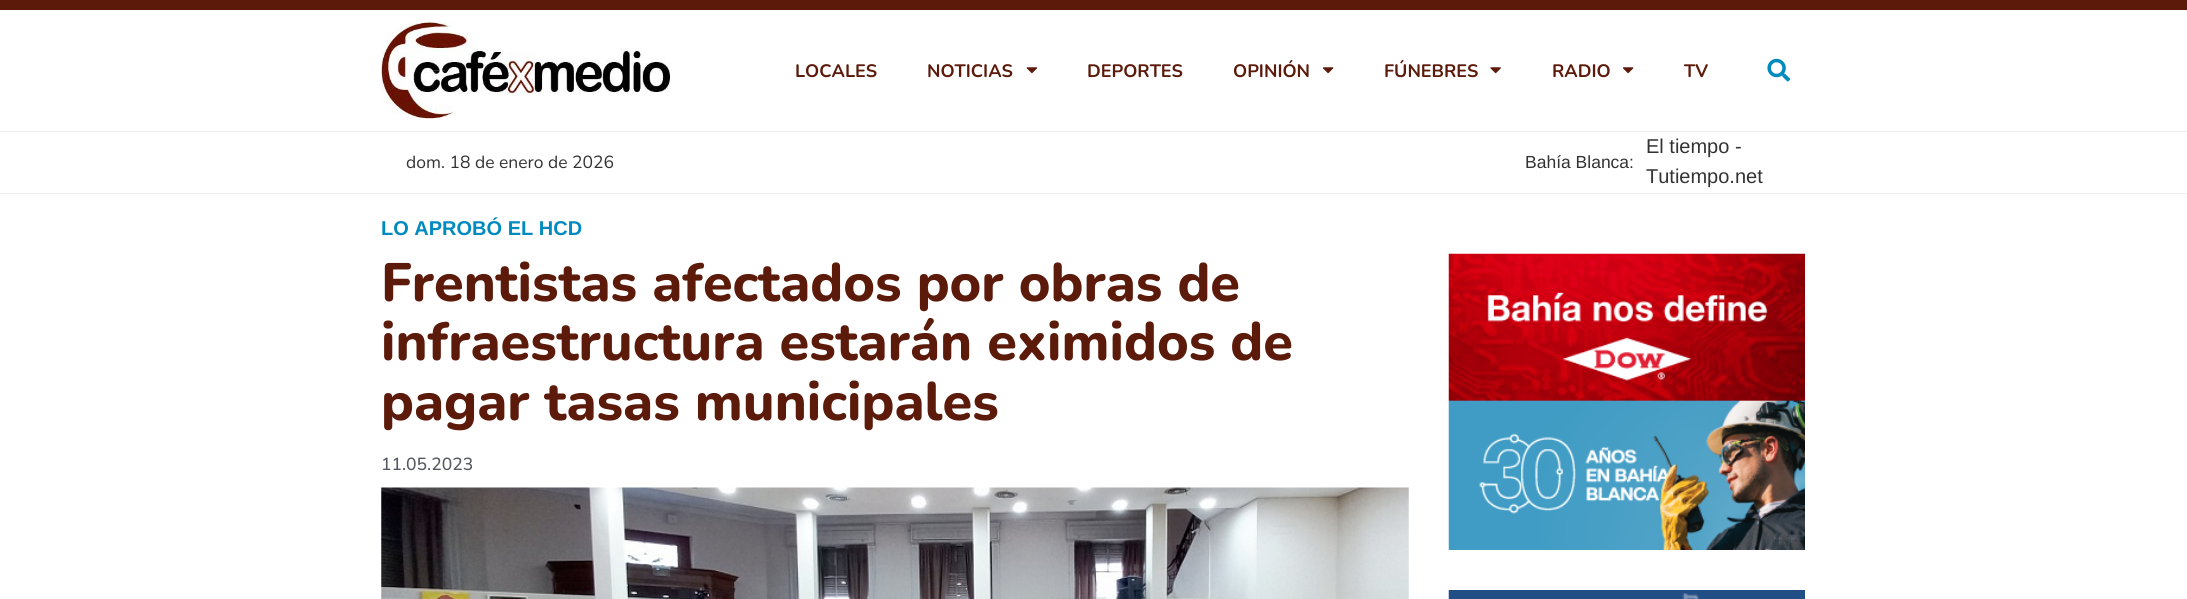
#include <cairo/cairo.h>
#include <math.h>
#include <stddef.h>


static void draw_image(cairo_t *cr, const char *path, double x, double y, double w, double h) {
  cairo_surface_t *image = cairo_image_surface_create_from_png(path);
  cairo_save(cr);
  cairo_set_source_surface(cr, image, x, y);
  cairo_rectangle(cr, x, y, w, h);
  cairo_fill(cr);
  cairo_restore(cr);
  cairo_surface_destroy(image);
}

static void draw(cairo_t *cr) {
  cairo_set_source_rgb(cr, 1, 1, 1);
  cairo_paint(cr);
  cairo_set_source_rgb(cr, 91 / 255.0, 26 / 255.0, 10 / 255.0);
  cairo_rectangle(cr, 0, 0, 2187, 10);
  cairo_fill(cr);
  cairo_set_source_rgb(cr, 238 / 255.0, 238 / 255.0, 238 / 255.0);
  cairo_rectangle(cr, 0, 131, 2187, 1);
  cairo_fill(cr);
  draw_image(cr, "images/1.png", 381, 22, 289, 97);
  draw_image(cr, "images/2.png", 1026, 67, 11, 7);
  draw_image(cr, "images/3.png", 1323, 67, 11, 7);
  draw_image(cr, "images/4.png", 1490, 67, 11, 7);
  draw_image(cr, "images/3.png", 1623, 67, 11, 7);
  draw_image(cr, "images/5.png", 1767, 58, 24, 24);
  cairo_rectangle(cr, 0, 193, 2187, 1);
  cairo_fill(cr);
  draw_image(cr, "images/6.png", 381, 487, 1028, 112);
  draw_image(cr, "images/7.png", 1448, 253, 357, 297);
  draw_image(cr, "images/8.png", 1448, 590, 357, 9);
  cairo_select_font_face(cr, "Nunito", CAIRO_FONT_SLANT_NORMAL, CAIRO_FONT_WEIGHT_BOLD);
  cairo_set_font_size(cr, 18);
  cairo_set_source_rgb(cr, 91 / 255.0, 26 / 255.0, 10 / 255.0);
  cairo_move_to(cr, 795, 77);
  cairo_show_text(cr, "LOCALES");
  cairo_move_to(cr, 927, 77);
  cairo_show_text(cr, "NOTICIAS");
  cairo_move_to(cr, 1087, 77);
  cairo_show_text(cr, "DEPORTES");
  cairo_move_to(cr, 1233, 77);
  cairo_show_text(cr, "OPINIÓN");
  cairo_move_to(cr, 1384, 77);
  cairo_show_text(cr, "FÚNEBRES");
  cairo_move_to(cr, 1552, 77);
  cairo_show_text(cr, "RADIO");
  cairo_move_to(cr, 1684, 77);
  cairo_show_text(cr, "TV");
  cairo_select_font_face(cr, "Nunito", CAIRO_FONT_SLANT_NORMAL, CAIRO_FONT_WEIGHT_NORMAL);
  cairo_set_font_size(cr, 17.5);
  cairo_set_source_rgb(cr, 51 / 255.0, 51 / 255.0, 51 / 255.0);
  cairo_move_to(cr, 406, 168);
  cairo_show_text(cr, "dom. 18 de enero de 2026");
  cairo_select_font_face(cr, "Liberation Sans", CAIRO_FONT_SLANT_NORMAL, CAIRO_FONT_WEIGHT_NORMAL);
  cairo_move_to(cr, 1525, 168);
  cairo_show_text(cr, "Bahía Blanca:");
  cairo_set_font_size(cr, 20);
  cairo_move_to(cr, 1646, 153);
  cairo_show_text(cr, "El tiempo -");
  cairo_move_to(cr, 1646, 183);
  cairo_show_text(cr, "Tutiempo.net");
  cairo_select_font_face(cr, "Liberation Sans", CAIRO_FONT_SLANT_NORMAL, CAIRO_FONT_WEIGHT_BOLD);
  cairo_set_source_rgb(cr, 0, 138 / 255.0, 190 / 255.0);
  cairo_move_to(cr, 381, 235);
  cairo_show_text(cr, "LO APROBÓ EL HCD");
  cairo_select_font_face(cr, "Nunito ExtraBold", CAIRO_FONT_SLANT_NORMAL, CAIRO_FONT_WEIGHT_NORMAL);
  cairo_set_font_size(cr, 54);
  cairo_set_source_rgb(cr, 91 / 255.0, 26 / 255.0, 10 / 255.0);
  cairo_move_to(cr, 381, 301);
  cairo_show_text(cr, "Frentistas afectados por obras de");
  cairo_move_to(cr, 381, 360);
  cairo_show_text(cr, "infraestructura estarán eximidos de");
  cairo_move_to(cr, 381, 420);
  cairo_show_text(cr, "pagar tasas municipales");
  cairo_select_font_face(cr, "Nunito Medium", CAIRO_FONT_SLANT_NORMAL, CAIRO_FONT_WEIGHT_NORMAL);
  cairo_set_font_size(cr, 17.5);
  cairo_set_source_rgb(cr, 84 / 255.0, 89 / 255.0, 95 / 255.0);
  cairo_move_to(cr, 381, 470);
  cairo_show_text(cr, "11.05.2023");
}

int main(void) {
  cairo_surface_t *surface = cairo_image_surface_create(CAIRO_FORMAT_RGB24, 2187, 599);
  cairo_t *cr = cairo_create(surface);
  cairo_font_options_t *options = cairo_font_options_create();
  cairo_font_options_set_hint_metrics(options, CAIRO_HINT_METRICS_OFF);
  cairo_font_options_set_hint_style(options, CAIRO_HINT_STYLE_NONE);
  cairo_set_font_options(cr, options);
  cairo_set_miter_limit(cr, 4);
  draw(cr);
  cairo_surface_write_to_png(surface, "out.png");
  cairo_font_options_destroy(options);
  cairo_destroy(cr);
  cairo_surface_destroy(surface);
  return 0;
}
